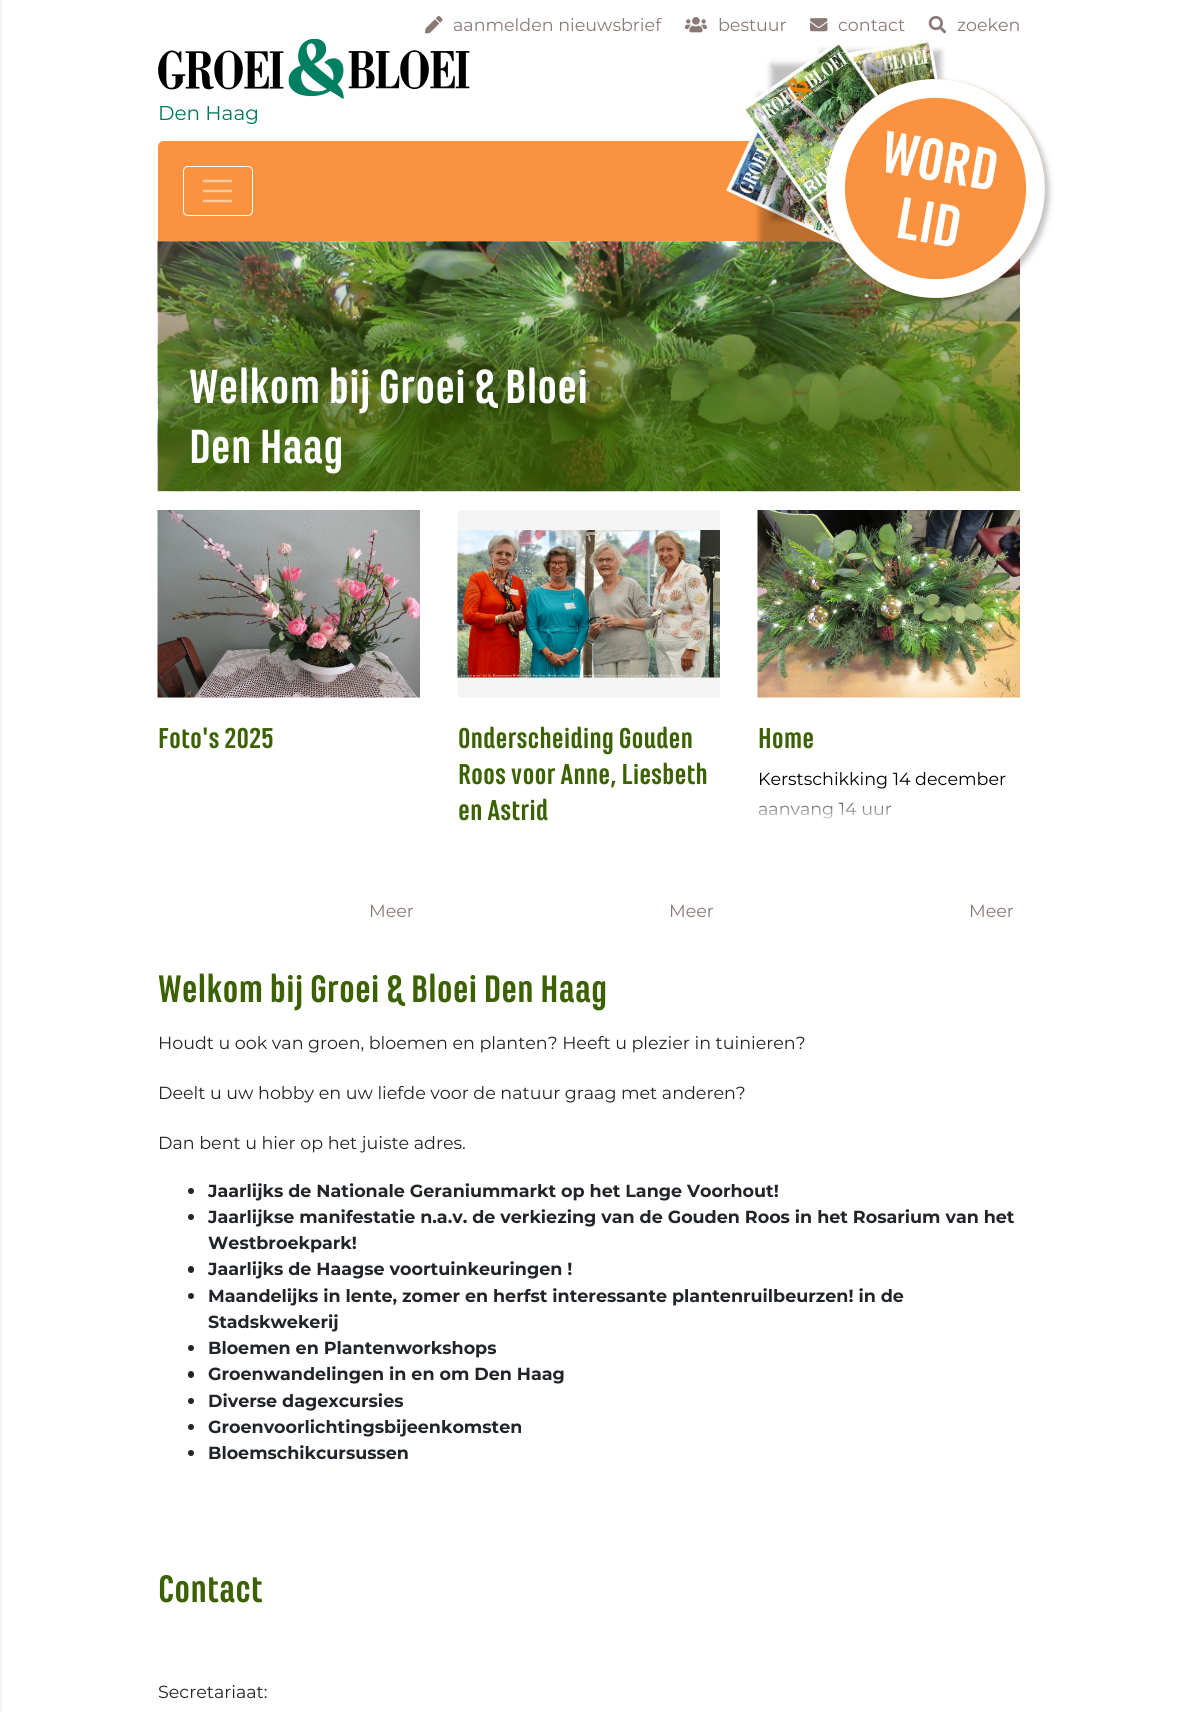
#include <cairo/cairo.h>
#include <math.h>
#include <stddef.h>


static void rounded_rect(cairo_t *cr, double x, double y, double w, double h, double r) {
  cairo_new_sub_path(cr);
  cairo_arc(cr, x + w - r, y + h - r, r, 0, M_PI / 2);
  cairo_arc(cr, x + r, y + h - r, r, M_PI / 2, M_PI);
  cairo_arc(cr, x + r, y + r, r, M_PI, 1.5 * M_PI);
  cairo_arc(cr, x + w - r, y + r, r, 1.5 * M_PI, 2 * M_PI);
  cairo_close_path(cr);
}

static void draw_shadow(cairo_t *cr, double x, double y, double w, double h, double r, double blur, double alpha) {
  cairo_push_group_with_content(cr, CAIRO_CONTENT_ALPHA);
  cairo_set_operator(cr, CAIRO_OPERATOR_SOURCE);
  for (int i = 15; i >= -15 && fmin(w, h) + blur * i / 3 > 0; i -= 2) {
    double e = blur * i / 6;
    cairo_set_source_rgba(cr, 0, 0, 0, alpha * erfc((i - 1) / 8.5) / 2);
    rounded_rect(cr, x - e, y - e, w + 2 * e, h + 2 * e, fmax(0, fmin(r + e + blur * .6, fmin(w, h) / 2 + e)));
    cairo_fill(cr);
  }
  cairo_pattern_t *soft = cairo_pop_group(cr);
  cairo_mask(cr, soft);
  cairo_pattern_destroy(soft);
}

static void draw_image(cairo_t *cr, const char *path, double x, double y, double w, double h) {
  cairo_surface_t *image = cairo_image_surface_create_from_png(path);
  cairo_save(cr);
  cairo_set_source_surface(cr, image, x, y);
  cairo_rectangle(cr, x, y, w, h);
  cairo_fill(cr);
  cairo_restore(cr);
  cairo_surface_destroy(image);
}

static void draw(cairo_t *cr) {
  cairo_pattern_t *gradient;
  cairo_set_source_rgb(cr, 1, 1, 1);
  cairo_paint(cr);
  draw_image(cr, "images/1.png", 425, 16, 18, 18);
  draw_image(cr, "images/2.png", 685, 17, 22, 16);
  draw_image(cr, "images/3.png", 810, 18, 18, 14);
  draw_image(cr, "images/4.png", 928, 16, 19, 18);
  draw_image(cr, "images/5.png", 158, 39, 312, 60);
  cairo_set_source_rgb(cr, 250 / 255.0, 146 / 255.0, 63 / 255.0);
  cairo_new_path(cr);
  cairo_move_to(cr, 164, 141);
  cairo_line_to(cr, 1014, 141);
  cairo_curve_to(cr, 1017.5, 141, 1020, 143.5, 1020, 147);
  cairo_line_to(cr, 1020, 241);
  cairo_line_to(cr, 158, 241);
  cairo_line_to(cr, 158, 147);
  cairo_curve_to(cr, 158, 143.5, 160.5, 141, 164, 141);
  cairo_close_path(cr);
  cairo_fill(cr);
  cairo_set_source_rgb(cr, 0, 0, 0);
  draw_shadow(cr, -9, 0, 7, 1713, 0, 3, 0.25);
  rounded_rect(cr, 183.5, 166.5, 69, 49, 4.5);
  cairo_set_source_rgb(cr, 1, 1, 1);
  cairo_set_line_width(cr, 1);
  cairo_stroke(cr);
  cairo_new_path(cr);
  cairo_move_to(cr, 204, 181);
  cairo_line_to(cr, 231, 181);
  cairo_move_to(cr, 204, 191);
  cairo_line_to(cr, 231, 191);
  cairo_move_to(cr, 204, 201);
  cairo_line_to(cr, 231, 201);
  cairo_set_source_rgb(cr, 253 / 255.0, 201 / 255.0, 159 / 255.0);
  cairo_set_line_width(cr, 2.5);
  cairo_set_line_cap(cr, CAIRO_LINE_CAP_ROUND);
  cairo_stroke(cr);
  cairo_set_source_rgb(cr, 0, 0, 0);
  draw_shadow(cr, 821, 51, 120, 157, 0, 3, 0.25);
  draw_image(cr, "images/6.png", 847, 38, 91, 58);
  draw_image(cr, "images/9.png", 157, 241, 863, 251);
  gradient = cairo_pattern_create_linear(589, 429, 589, 241);
  cairo_pattern_add_color_stop_rgba(gradient, 0, 59 / 255.0, 97 / 255.0, 1 / 255.0, 0.75);
  cairo_pattern_add_color_stop_rgba(gradient, 1, 59 / 255.0, 97 / 255.0, 1 / 255.0, 0);
  cairo_set_source(cr, gradient);
  cairo_pattern_destroy(gradient);
  cairo_rectangle(cr, 158, 246, 862, 183);
  cairo_fill(cr);
  cairo_set_source_rgb(cr, 0, 0, 0);
  draw_shadow(cr, 759, 95, 120, 156, 0, 3, 0.25);
  draw_image(cr, "images/8.png", 726, 128, 116, 117);
  draw_shadow(cr, 771, 64, 120, 156, 0, 3, 0.25);
  draw_image(cr, "images/7.png", 741, 43, 138, 193);
  draw_shadow(cr, 830, 83, 219, 218, 109, 3, 0.25);
  cairo_set_source_rgb(cr, 250 / 255.0, 146 / 255.0, 63 / 255.0);
  cairo_new_path(cr);
  cairo_move_to(cr, 955, 81);
  cairo_curve_to(cr, 1014, 91, 1054, 148, 1043, 207);
  cairo_curve_to(cr, 1033, 267, 976, 307, 917, 296);
  cairo_curve_to(cr, 857, 286, 817, 229, 828, 169);
  cairo_curve_to(cr, 838, 110, 895, 70, 955, 81);
  cairo_close_path(cr);
  cairo_fill(cr);
  cairo_new_path(cr);
  cairo_move_to(cr, 953, 90);
  cairo_curve_to(cr, 1007.5, 99.5, 1043.5, 151.5, 1034, 205.5);
  cairo_curve_to(cr, 1024.5, 260, 972.5, 296.5, 918.5, 287);
  cairo_curve_to(cr, 864, 277, 827.5, 225.5, 837, 171);
  cairo_curve_to(cr, 846.5, 116.5, 898.5, 80.5, 953, 90);
  cairo_close_path(cr);
  cairo_set_source_rgb(cr, 1, 1, 1);
  cairo_set_line_width(cr, 18.8);
  cairo_set_line_cap(cr, CAIRO_LINE_CAP_BUTT);
  cairo_stroke(cr);
  cairo_set_source_rgba(cr, 59 / 255.0, 97 / 255.0, 1 / 255.0, 0.75);
  cairo_rectangle(cr, 158, 429, 862, 62);
  cairo_fill(cr);
  cairo_set_source_rgb(cr, 245 / 255.0, 245 / 255.0, 245 / 255.0);
  cairo_rectangle(cr, 158, 697, 262, 1);
  cairo_fill(cr);
  draw_image(cr, "images/10.png", 157, 510, 263, 188);
  cairo_rectangle(cr, 458, 510, 262, 188);
  cairo_fill(cr);
  draw_image(cr, "images/11.png", 457, 530, 263, 148);
  cairo_rectangle(cr, 758, 697, 262, 1);
  cairo_fill(cr);
  draw_image(cr, "images/12.png", 757, 510, 263, 188);
  cairo_set_source_rgb(cr, 33 / 255.0, 37 / 255.0, 41 / 255.0);
  cairo_arc(cr, 191, 1191, 3, 0, 2 * M_PI);
  cairo_fill(cr);
  cairo_arc(cr, 191, 1217, 3, 0, 2 * M_PI);
  cairo_fill(cr);
  rounded_rect(cr, 188, 1266, 6, 7, 3);
  cairo_fill(cr);
  cairo_arc(cr, 191, 1296, 3, 0, 2 * M_PI);
  cairo_fill(cr);
  cairo_arc(cr, 191, 1348, 3, 0, 2 * M_PI);
  cairo_fill(cr);
  rounded_rect(cr, 188, 1371, 6, 7, 3);
  cairo_fill(cr);
  cairo_arc(cr, 191, 1401, 3, 0, 2 * M_PI);
  cairo_fill(cr);
  cairo_arc(cr, 191, 1427, 3, 0, 2 * M_PI);
  cairo_fill(cr);
  cairo_arc(cr, 191, 1453, 3, 0, 2 * M_PI);
  cairo_fill(cr);
  cairo_select_font_face(cr, "Montserrat", CAIRO_FONT_SLANT_NORMAL, CAIRO_FONT_WEIGHT_NORMAL);
  cairo_set_font_size(cr, 17.5);
  cairo_set_source_rgb(cr, 138 / 255.0, 122 / 255.0, 117 / 255.0);
  cairo_move_to(cr, 453, 31);
  cairo_show_text(cr, "aanmelden nieuwsbrief");
  cairo_move_to(cr, 718, 31);
  cairo_show_text(cr, "bestuur");
  cairo_move_to(cr, 838, 31);
  cairo_show_text(cr, "contact");
  cairo_move_to(cr, 957, 31);
  cairo_show_text(cr, "zoeken");
  cairo_set_font_size(cr, 20);
  cairo_set_source_rgb(cr, 0, 120 / 255.0, 90 / 255.0);
  cairo_move_to(cr, 158, 120);
  cairo_show_text(cr, "Den Haag");
  cairo_select_font_face(cr, "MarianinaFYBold", CAIRO_FONT_SLANT_NORMAL, CAIRO_FONT_WEIGHT_BOLD);
  cairo_set_font_size(cr, 62);
  cairo_set_source_rgb(cr, 1, 1, 1);
  cairo_save(cr);
  cairo_translate(cr, 879, 171);
  cairo_rotate(cr, 10 * M_PI / 180);
  cairo_move_to(cr, 0, 0);
  cairo_show_text(cr, "WORD");
  cairo_restore(cr);
  cairo_save(cr);
  cairo_translate(cr, 894, 237);
  cairo_rotate(cr, 10 * M_PI / 180);
  cairo_move_to(cr, 0, 0);
  cairo_show_text(cr, "LID");
  cairo_restore(cr);
  cairo_set_font_size(cr, 50);
  cairo_move_to(cr, 189, 403);
  cairo_show_text(cr, "Welkom bij Groei & Bloei");
  cairo_move_to(cr, 189, 463);
  cairo_show_text(cr, "Den Haag");
  cairo_set_font_size(cr, 30);
  cairo_set_source_rgb(cr, 59 / 255.0, 97 / 255.0, 1 / 255.0);
  cairo_move_to(cr, 158, 748);
  cairo_show_text(cr, "Foto's 2025");
  cairo_select_font_face(cr, "Montserrat", CAIRO_FONT_SLANT_NORMAL, CAIRO_FONT_WEIGHT_NORMAL);
  cairo_set_font_size(cr, 17.5);
  cairo_set_source_rgb(cr, 138 / 255.0, 122 / 255.0, 117 / 255.0);
  cairo_move_to(cr, 369, 917);
  cairo_show_text(cr, "Meer");
  cairo_select_font_face(cr, "MarianinaFYBold", CAIRO_FONT_SLANT_NORMAL, CAIRO_FONT_WEIGHT_BOLD);
  cairo_set_font_size(cr, 30);
  cairo_set_source_rgb(cr, 59 / 255.0, 97 / 255.0, 1 / 255.0);
  cairo_move_to(cr, 458, 748);
  cairo_show_text(cr, "Onderscheiding Gouden");
  cairo_move_to(cr, 458, 784);
  cairo_show_text(cr, "Roos voor Anne, Liesbeth");
  cairo_move_to(cr, 458, 820);
  cairo_show_text(cr, "en Astrid");
  cairo_select_font_face(cr, "Montserrat", CAIRO_FONT_SLANT_NORMAL, CAIRO_FONT_WEIGHT_NORMAL);
  cairo_set_font_size(cr, 17.5);
  cairo_set_source_rgb(cr, 138 / 255.0, 122 / 255.0, 117 / 255.0);
  cairo_move_to(cr, 669, 917);
  cairo_show_text(cr, "Meer");
  cairo_select_font_face(cr, "MarianinaFYBold", CAIRO_FONT_SLANT_NORMAL, CAIRO_FONT_WEIGHT_BOLD);
  cairo_set_font_size(cr, 30);
  cairo_set_source_rgb(cr, 59 / 255.0, 97 / 255.0, 1 / 255.0);
  cairo_move_to(cr, 758, 748);
  cairo_show_text(cr, "Home");
  cairo_select_font_face(cr, "Montserrat", CAIRO_FONT_SLANT_NORMAL, CAIRO_FONT_WEIGHT_NORMAL);
  cairo_set_font_size(cr, 17.5);
  cairo_set_source_rgb(cr, 0, 0, 0);
  cairo_move_to(cr, 758, 785);
  cairo_show_text(cr, "Kerstschikking 14 december");
  cairo_move_to(cr, 758, 815);
  cairo_show_text(cr, "aanvang 14 uur");
  gradient = cairo_pattern_create_linear(889, 789, 889, 826);
  cairo_pattern_add_color_stop_rgba(gradient, 0, 1, 1, 1, 0);
  cairo_pattern_add_color_stop_rgba(gradient, 1, 1, 1, 1, 1);
  cairo_set_source(cr, gradient);
  cairo_pattern_destroy(gradient);
  cairo_rectangle(cr, 758, 802, 133, 17);
  cairo_fill(cr);
  cairo_set_source_rgb(cr, 138 / 255.0, 122 / 255.0, 117 / 255.0);
  cairo_move_to(cr, 969, 917);
  cairo_show_text(cr, "Meer");
  cairo_select_font_face(cr, "MarianinaFYBold", CAIRO_FONT_SLANT_NORMAL, CAIRO_FONT_WEIGHT_BOLD);
  cairo_set_font_size(cr, 40);
  cairo_set_source_rgb(cr, 59 / 255.0, 97 / 255.0, 1 / 255.0);
  cairo_move_to(cr, 158, 1002);
  cairo_show_text(cr, "Welkom bij Groei & Bloei Den Haag");
  cairo_select_font_face(cr, "Montserrat", CAIRO_FONT_SLANT_NORMAL, CAIRO_FONT_WEIGHT_NORMAL);
  cairo_set_font_size(cr, 17.5);
  cairo_set_source_rgb(cr, 33 / 255.0, 37 / 255.0, 41 / 255.0);
  cairo_move_to(cr, 158, 1049);
  cairo_show_text(cr, "Houdt u ook van groen, bloemen en planten? Heeft u plezier in tuinieren?");
  cairo_move_to(cr, 158, 1099);
  cairo_show_text(cr, "Deelt u uw hobby en uw liefde voor de natuur graag met anderen?");
  cairo_move_to(cr, 158, 1149);
  cairo_show_text(cr, "Dan bent u hier op het juiste adres.");
  cairo_select_font_face(cr, "Montserrat", CAIRO_FONT_SLANT_NORMAL, CAIRO_FONT_WEIGHT_BOLD);
  cairo_move_to(cr, 208, 1197);
  cairo_show_text(cr, "Jaarlijks de Nationale Geraniummarkt op het Lange Voorhout!");
  cairo_move_to(cr, 208, 1223);
  cairo_show_text(cr, "Jaarlijkse manifestatie n.a.v. de verkiezing van de Gouden Roos in het Rosarium van het");
  cairo_move_to(cr, 208, 1249);
  cairo_show_text(cr, "Westbroekpark!");
  cairo_move_to(cr, 208, 1275);
  cairo_show_text(cr, "Jaarlijks de Haagse voortuinkeuringen !");
  cairo_move_to(cr, 208, 1302);
  cairo_show_text(cr, "Maandelijks in lente, zomer en herfst interessante plantenruilbeurzen! in de");
  cairo_move_to(cr, 208, 1328);
  cairo_show_text(cr, "Stadskwekerij");
  cairo_move_to(cr, 208, 1354);
  cairo_show_text(cr, "Bloemen en Plantenworkshops");
  cairo_move_to(cr, 208, 1380);
  cairo_show_text(cr, "Groenwandelingen in en om Den Haag");
  cairo_move_to(cr, 208, 1407);
  cairo_show_text(cr, "Diverse dagexcursies");
  cairo_move_to(cr, 208, 1433);
  cairo_show_text(cr, "Groenvoorlichtingsbijeenkomsten");
  cairo_move_to(cr, 208, 1459);
  cairo_show_text(cr, "Bloemschikcursussen");
  cairo_select_font_face(cr, "MarianinaFYBold", CAIRO_FONT_SLANT_NORMAL, CAIRO_FONT_WEIGHT_BOLD);
  cairo_set_font_size(cr, 40);
  cairo_set_source_rgb(cr, 59 / 255.0, 97 / 255.0, 1 / 255.0);
  cairo_move_to(cr, 158, 1602);
  cairo_show_text(cr, "Contact");
  cairo_select_font_face(cr, "Montserrat", CAIRO_FONT_SLANT_NORMAL, CAIRO_FONT_WEIGHT_NORMAL);
  cairo_set_font_size(cr, 17.5);
  cairo_set_source_rgb(cr, 33 / 255.0, 37 / 255.0, 41 / 255.0);
  cairo_move_to(cr, 158, 1698);
  cairo_show_text(cr, "Secretariaat:");
}

int main(void) {
  cairo_surface_t *surface = cairo_image_surface_create(CAIRO_FORMAT_RGB24, 1177, 1712);
  cairo_t *cr = cairo_create(surface);
  cairo_font_options_t *options = cairo_font_options_create();
  cairo_font_options_set_hint_metrics(options, CAIRO_HINT_METRICS_OFF);
  cairo_font_options_set_hint_style(options, CAIRO_HINT_STYLE_NONE);
  cairo_set_font_options(cr, options);
  cairo_set_miter_limit(cr, 4);
  draw(cr);
  cairo_surface_write_to_png(surface, "out.png");
  cairo_font_options_destroy(options);
  cairo_destroy(cr);
  cairo_surface_destroy(surface);
  return 0;
}
